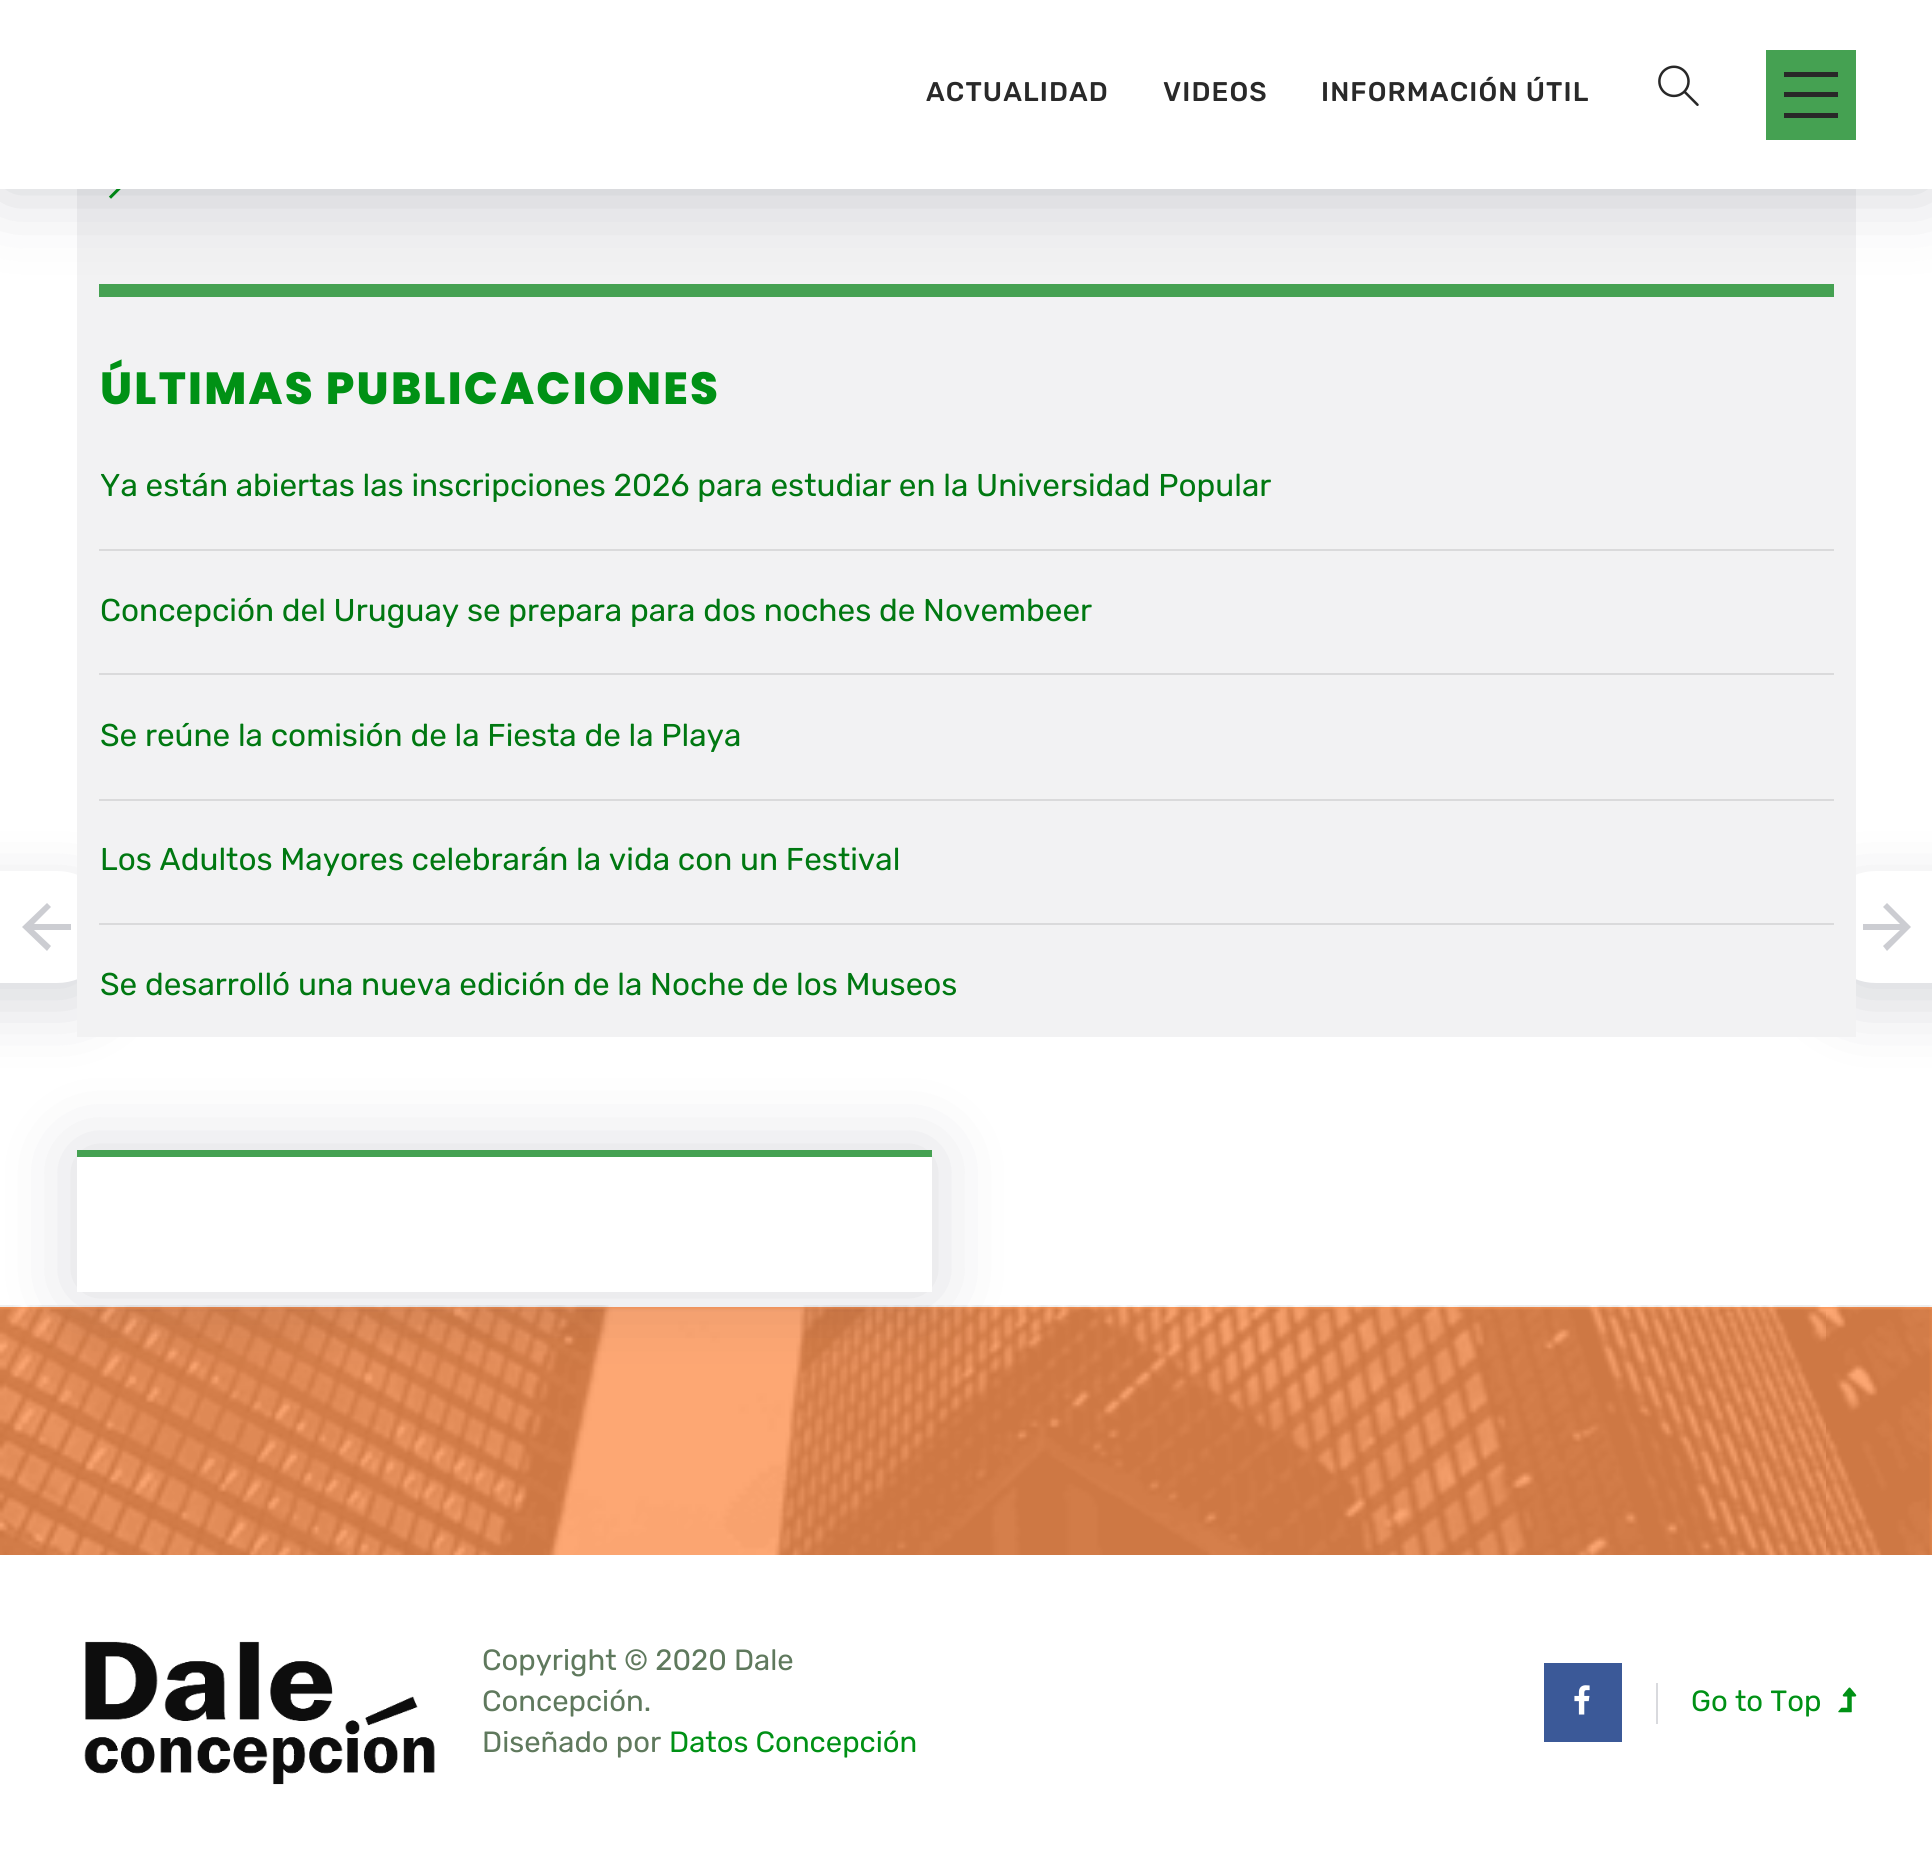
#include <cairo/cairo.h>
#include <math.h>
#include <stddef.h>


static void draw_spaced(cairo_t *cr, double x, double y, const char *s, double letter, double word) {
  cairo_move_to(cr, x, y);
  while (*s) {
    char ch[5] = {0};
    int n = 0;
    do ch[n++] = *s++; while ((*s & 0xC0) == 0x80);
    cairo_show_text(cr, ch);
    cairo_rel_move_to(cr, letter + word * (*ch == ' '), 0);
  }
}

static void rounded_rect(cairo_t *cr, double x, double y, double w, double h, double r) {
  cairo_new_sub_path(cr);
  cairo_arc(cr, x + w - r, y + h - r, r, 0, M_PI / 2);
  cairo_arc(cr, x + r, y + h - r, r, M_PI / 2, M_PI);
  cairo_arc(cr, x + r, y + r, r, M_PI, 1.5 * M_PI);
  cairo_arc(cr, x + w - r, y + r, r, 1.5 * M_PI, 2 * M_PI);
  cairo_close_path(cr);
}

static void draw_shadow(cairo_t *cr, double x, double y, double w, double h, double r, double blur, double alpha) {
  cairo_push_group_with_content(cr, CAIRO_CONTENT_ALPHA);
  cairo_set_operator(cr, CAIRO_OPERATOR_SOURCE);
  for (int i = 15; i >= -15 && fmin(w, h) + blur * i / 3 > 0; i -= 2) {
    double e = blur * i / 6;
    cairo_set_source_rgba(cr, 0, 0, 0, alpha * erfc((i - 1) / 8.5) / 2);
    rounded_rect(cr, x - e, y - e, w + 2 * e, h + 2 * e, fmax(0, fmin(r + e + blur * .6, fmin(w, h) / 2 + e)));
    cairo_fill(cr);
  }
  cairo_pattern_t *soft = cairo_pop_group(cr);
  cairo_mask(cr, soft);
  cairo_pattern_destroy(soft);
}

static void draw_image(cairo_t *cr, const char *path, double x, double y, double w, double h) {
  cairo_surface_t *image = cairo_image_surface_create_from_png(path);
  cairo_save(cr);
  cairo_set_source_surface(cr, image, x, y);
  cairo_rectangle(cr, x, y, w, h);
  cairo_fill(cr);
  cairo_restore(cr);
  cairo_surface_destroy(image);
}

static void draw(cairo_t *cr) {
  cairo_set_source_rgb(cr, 1, 1, 1);
  cairo_paint(cr);
  cairo_set_source_rgb(cr, 2 / 255.0, 6 / 255.0, 32 / 255.0);
  draw_shadow(cr, -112, 893, 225, 113, 56.5, 34, 0.15);
  cairo_set_source_rgb(cr, 1, 1, 1);
  rounded_rect(cr, -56, 871, 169, 112, 56);
  cairo_fill(cr);
  cairo_set_source_rgb(cr, 2 / 255.0, 6 / 255.0, 32 / 255.0);
  draw_shadow(cr, 1820, 893, 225, 113, 56.5, 34, 0.15);
  cairo_set_source_rgb(cr, 1, 1, 1);
  rounded_rect(cr, 1820, 871, 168, 112, 56);
  cairo_fill(cr);
  cairo_set_source_rgb(cr, 242 / 255.0, 242 / 255.0, 243 / 255.0);
  cairo_rectangle(cr, 77, 189, 1779, 848);
  cairo_fill(cr);
  cairo_set_source_rgb(cr, 69 / 255.0, 161 / 255.0, 82 / 255.0);
  cairo_rectangle(cr, 99, 284, 1735, 13);
  cairo_fill(cr);
  draw_image(cr, "images/2.png", 108, 189, 13, 10);
  cairo_set_source_rgb(cr, 2 / 255.0, 6 / 255.0, 32 / 255.0);
  draw_shadow(cr, 0, 0, 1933, 189, 0, 39.5, 0.2);
  cairo_set_source_rgb(cr, 1, 1, 1);
  cairo_rectangle(cr, 0, 0, 1932, 189);
  cairo_fill(cr);
  draw_image(cr, "images/1.png", 1658, 65, 41, 41);
  cairo_set_source_rgb(cr, 69 / 255.0, 161 / 255.0, 82 / 255.0);
  cairo_rectangle(cr, 1766, 50, 90, 90);
  cairo_fill(cr);
  cairo_set_source_rgb(cr, 40 / 255.0, 40 / 255.0, 40 / 255.0);
  cairo_rectangle(cr, 1784, 72, 54, 5);
  cairo_fill(cr);
  cairo_rectangle(cr, 1784, 113, 54, 5);
  cairo_fill(cr);
  cairo_rectangle(cr, 1784, 92, 54, 5);
  cairo_fill(cr);
  cairo_set_source_rgb(cr, 218 / 255.0, 218 / 255.0, 219 / 255.0);
  cairo_rectangle(cr, 99, 549, 1735, 2);
  cairo_fill(cr);
  cairo_rectangle(cr, 99, 673, 1735, 2);
  cairo_fill(cr);
  cairo_rectangle(cr, 99, 799, 1735, 2);
  cairo_fill(cr);
  cairo_rectangle(cr, 99, 923, 1735, 2);
  cairo_fill(cr);
  cairo_set_source_rgb(cr, 204 / 255.0, 205 / 255.0, 210 / 255.0);
  cairo_new_path(cr);
  cairo_move_to(cr, 71, 924);
  cairo_line_to(cr, 71, 930);
  cairo_line_to(cr, 34, 930);
  cairo_line_to(cr, 51, 946);
  cairo_line_to(cr, 47, 951);
  cairo_line_to(cr, 22, 927);
  cairo_line_to(cr, 47, 903);
  cairo_line_to(cr, 51, 907);
  cairo_line_to(cr, 34, 924);
  cairo_close_path(cr);
  cairo_fill(cr);
  cairo_new_path(cr);
  cairo_move_to(cr, 1863, 930);
  cairo_line_to(cr, 1863, 924);
  cairo_line_to(cr, 1900, 924);
  cairo_line_to(cr, 1883, 907);
  cairo_line_to(cr, 1887, 903);
  cairo_line_to(cr, 1911, 927);
  cairo_line_to(cr, 1887, 951);
  cairo_line_to(cr, 1883, 946);
  cairo_line_to(cr, 1900, 930);
  cairo_close_path(cr);
  cairo_fill(cr);
  cairo_set_source_rgb(cr, 1, 148 / 255.0, 82 / 255.0);
  cairo_rectangle(cr, 0, 1307, 1932, 248);
  cairo_fill(cr);
  draw_image(cr, "images/3.png", 0, 1305, 1932, 250);
  cairo_set_source_rgb(cr, 2 / 255.0, 6 / 255.0, 32 / 255.0);
  draw_shadow(cr, 77, 1150, 855, 142, 0, 39.5, 0.15);
  cairo_set_source_rgb(cr, 1, 1, 1);
  cairo_rectangle(cr, 77, 1157, 855, 135);
  cairo_fill(cr);
  cairo_set_source_rgb(cr, 69 / 255.0, 161 / 255.0, 82 / 255.0);
  cairo_rectangle(cr, 77, 1150, 855, 7);
  cairo_fill(cr);
  draw_image(cr, "images/4.png", 84, 1641, 351, 144);
  cairo_set_source_rgb(cr, 59 / 255.0, 89 / 255.0, 152 / 255.0);
  cairo_rectangle(cr, 1544, 1663, 78, 79);
  cairo_fill(cr);
  draw_image(cr, "images/5.png", 1574, 1685, 16, 30);
  cairo_set_source_rgb(cr, 217 / 255.0, 218 / 255.0, 222 / 255.0);
  cairo_rectangle(cr, 1656, 1683, 2, 41);
  cairo_fill(cr);
  draw_image(cr, "images/6.png", 1838, 1687, 19, 26);
  cairo_select_font_face(cr, "Rubik Medium", CAIRO_FONT_SLANT_NORMAL, CAIRO_FONT_WEIGHT_NORMAL);
  cairo_set_font_size(cr, 27);
  cairo_set_source_rgb(cr, 41 / 255.0, 41 / 255.0, 41 / 255.0);
  draw_spaced(cr, 926, 101, "ACTUALIDAD", 1.1, 0);
  draw_spaced(cr, 1163, 101, "VIDEOS", 1.1, 0);
  draw_spaced(cr, 1321, 101, "INFORMACIÓN ÚTIL", 1.1, 0);
  cairo_select_font_face(cr, "Poppins ExtraBold", CAIRO_FONT_SLANT_NORMAL, CAIRO_FONT_WEIGHT_NORMAL);
  cairo_set_font_size(cr, 45);
  cairo_set_source_rgb(cr, 0, 145 / 255.0, 21 / 255.0);
  draw_spaced(cr, 100, 404, "ÚLTIMAS PUBLICACIONES", 2.25, 0);
  cairo_select_font_face(cr, "Rubik", CAIRO_FONT_SLANT_NORMAL, CAIRO_FONT_WEIGHT_NORMAL);
  cairo_set_font_size(cr, 31.5);
  cairo_set_source_rgb(cr, 0, 120 / 255.0, 17 / 255.0);
  cairo_move_to(cr, 100, 496);
  cairo_show_text(cr, "Ya están abiertas las inscripciones 2026 para estudiar en la Universidad Popular");
  cairo_move_to(cr, 100, 621);
  cairo_show_text(cr, "Concepción del Uruguay se prepara para dos noches de Novembeer");
  cairo_move_to(cr, 100, 746);
  cairo_show_text(cr, "Se reúne la comisión de la Fiesta de la Playa");
  cairo_move_to(cr, 100, 870);
  cairo_show_text(cr, "Los Adultos Mayores celebrarán la vida con un Festival");
  cairo_move_to(cr, 100, 995);
  cairo_show_text(cr, "Se desarrolló una nueva edición de la Noche de los Museos");
  cairo_set_font_size(cr, 29.25);
  cairo_set_source_rgb(cr, 95 / 255.0, 121 / 255.0, 93 / 255.0);
  cairo_move_to(cr, 482, 1670);
  cairo_show_text(cr, "Copyright © 2020 Dale");
  cairo_move_to(cr, 482, 1711);
  cairo_show_text(cr, "Concepción.");
  cairo_move_to(cr, 482, 1752);
  cairo_show_text(cr, "Diseñado por");
  cairo_set_source_rgb(cr, 0, 145 / 255.0, 21 / 255.0);
  cairo_move_to(cr, 669, 1752);
  cairo_show_text(cr, "Datos Concepción");
  cairo_move_to(cr, 1691, 1711);
  cairo_show_text(cr, "Go to Top");
}

int main(void) {
  cairo_surface_t *surface = cairo_image_surface_create(CAIRO_FORMAT_RGB24, 1932, 1850);
  cairo_t *cr = cairo_create(surface);
  cairo_font_options_t *options = cairo_font_options_create();
  cairo_font_options_set_hint_metrics(options, CAIRO_HINT_METRICS_OFF);
  cairo_font_options_set_hint_style(options, CAIRO_HINT_STYLE_NONE);
  cairo_set_font_options(cr, options);
  cairo_set_miter_limit(cr, 4);
  draw(cr);
  cairo_surface_write_to_png(surface, "out.png");
  cairo_font_options_destroy(options);
  cairo_destroy(cr);
  cairo_surface_destroy(surface);
  return 0;
}
